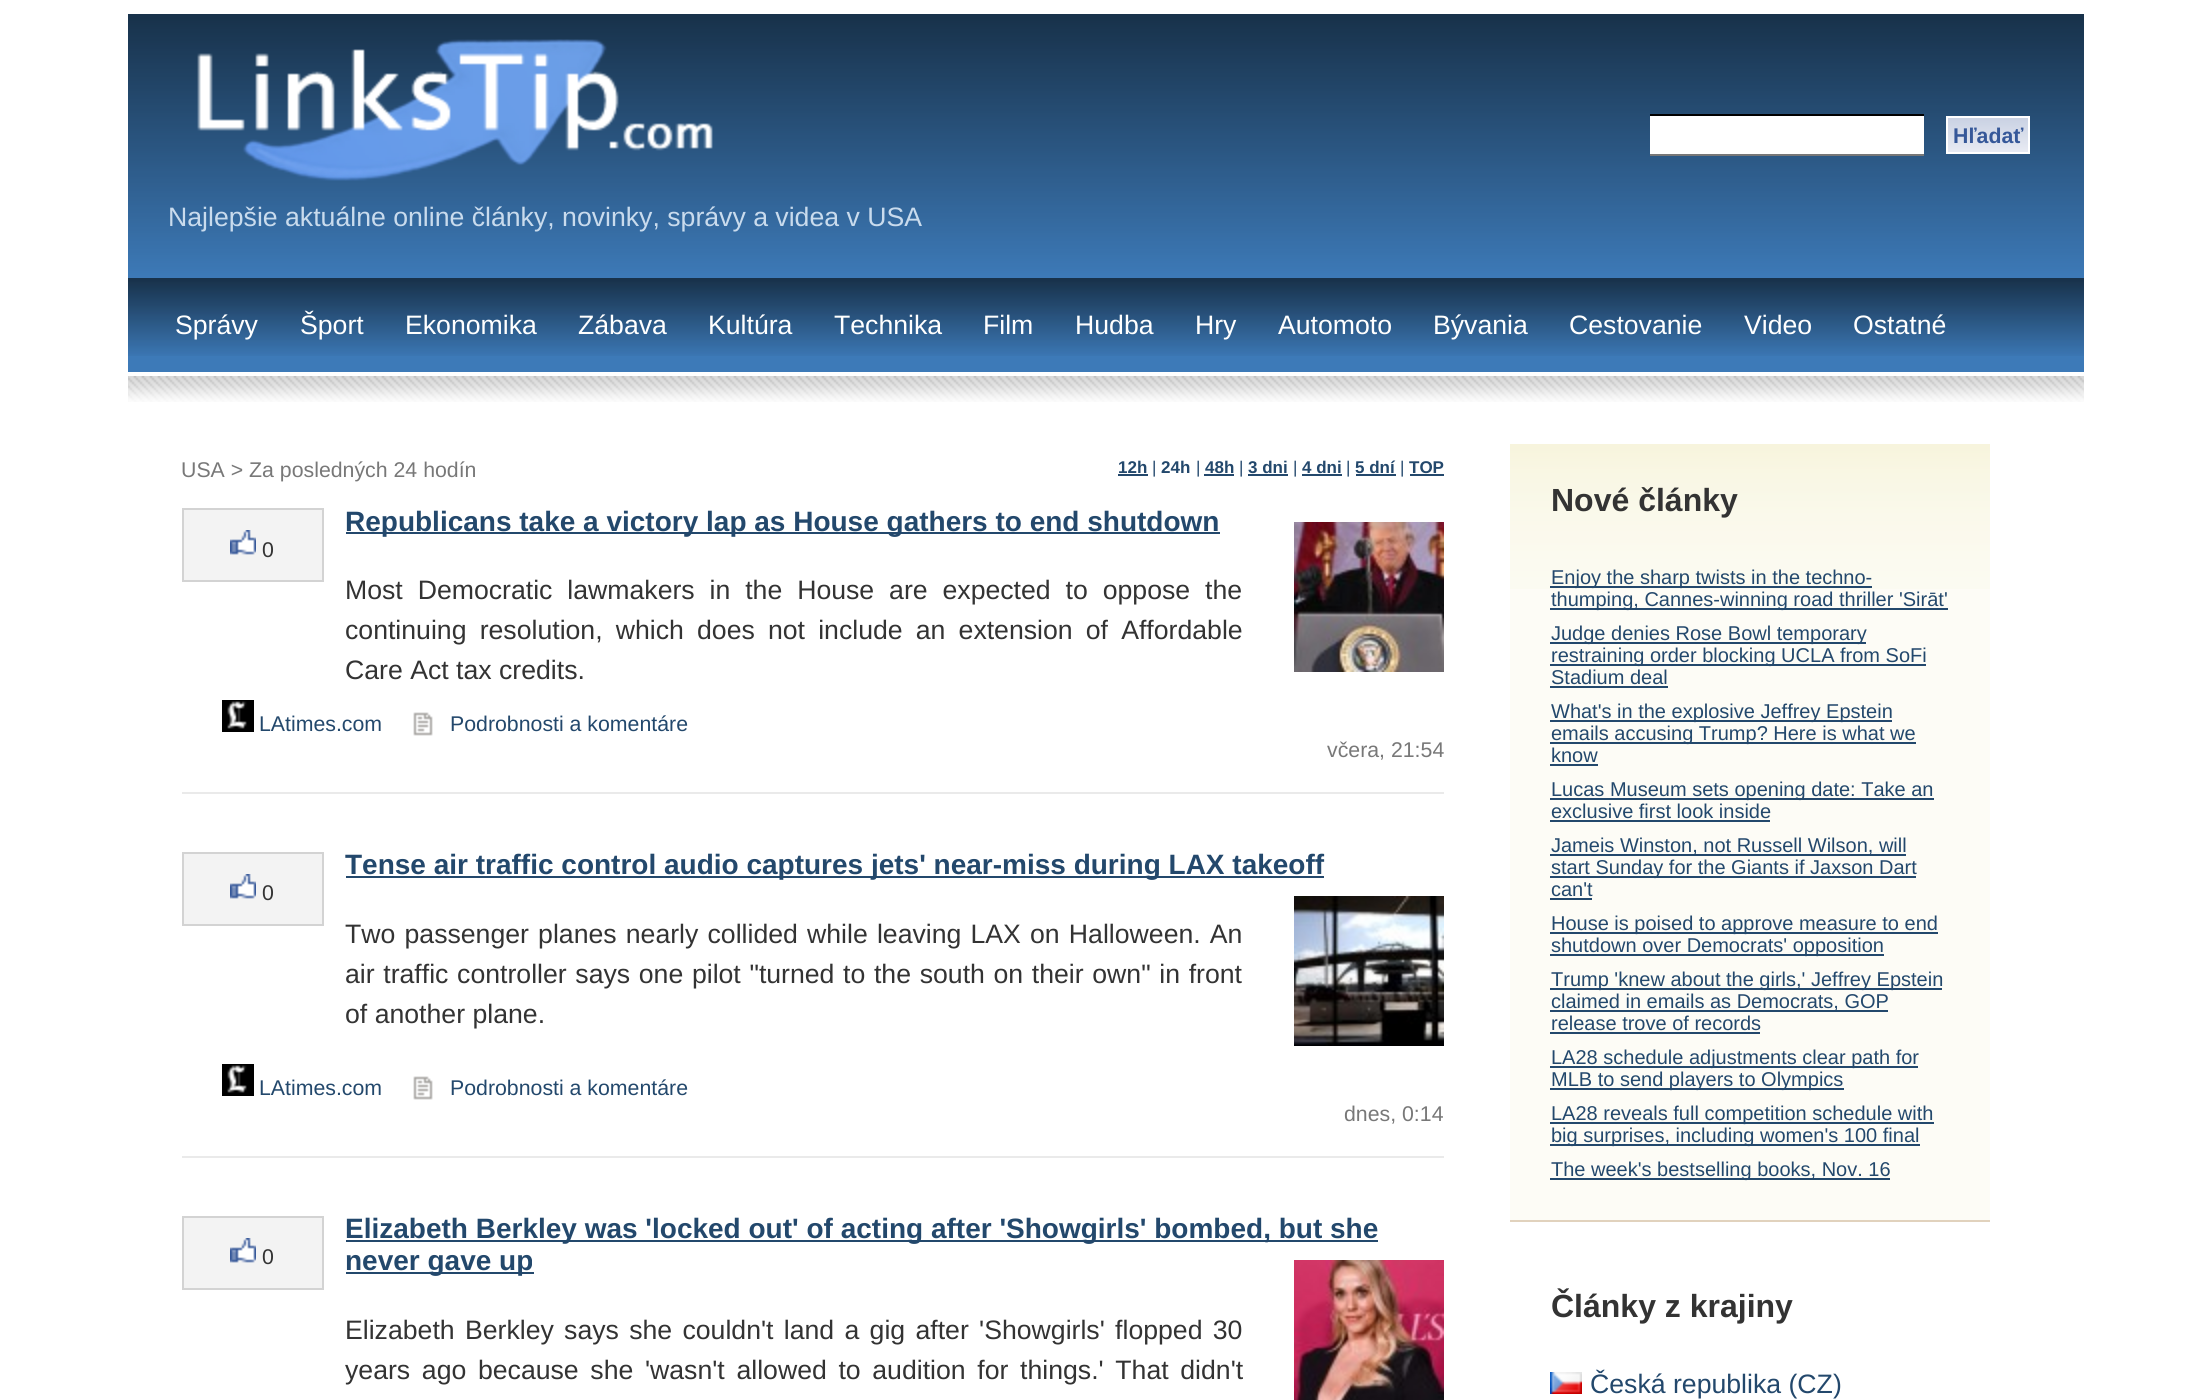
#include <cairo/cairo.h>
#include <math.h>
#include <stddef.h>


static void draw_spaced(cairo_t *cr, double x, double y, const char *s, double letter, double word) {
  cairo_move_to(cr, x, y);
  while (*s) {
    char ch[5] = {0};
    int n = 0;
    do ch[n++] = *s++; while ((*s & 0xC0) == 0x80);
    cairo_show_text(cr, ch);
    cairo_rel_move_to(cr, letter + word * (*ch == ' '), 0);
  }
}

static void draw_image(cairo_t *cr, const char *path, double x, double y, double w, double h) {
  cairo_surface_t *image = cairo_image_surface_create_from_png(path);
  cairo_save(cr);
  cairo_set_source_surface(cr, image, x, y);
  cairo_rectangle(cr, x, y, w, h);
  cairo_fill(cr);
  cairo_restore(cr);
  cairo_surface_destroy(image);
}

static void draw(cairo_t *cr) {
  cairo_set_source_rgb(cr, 1, 1, 1);
  cairo_paint(cr);
  draw_image(cr, "images/2.png", 128, 14, 1956, 264);
  cairo_set_source_rgb(cr, 1, 1, 1);
  cairo_rectangle(cr, 1650, 116, 274, 38);
  cairo_fill(cr);
  cairo_set_source_rgb(cr, 0, 0, 0);
  cairo_rectangle(cr, 1650, 114, 274, 2);
  cairo_fill(cr);
  cairo_set_source_rgb(cr, 119 / 255.0, 119 / 255.0, 119 / 255.0);
  cairo_rectangle(cr, 1650, 154, 274, 2);
  cairo_fill(cr);
  draw_image(cr, "images/1.png", 1948, 118, 80, 34);
  cairo_rectangle(cr, 1947, 117, 82, 36);
  cairo_set_source_rgb(cr, 1, 1, 1);
  cairo_stroke(cr);
  draw_image(cr, "images/3.png", 197, 39, 516, 142);
  cairo_set_source_rgb(cr, 61 / 255.0, 122 / 255.0, 184 / 255.0);
  cairo_rectangle(cr, 128, 356, 1956, 16);
  cairo_fill(cr);
  draw_image(cr, "images/4.png", 128, 278, 1956, 78);
  draw_image(cr, "images/5.png", 128, 376, 1956, 26);
  cairo_set_source_rgb(cr, 35 / 255.0, 72 / 255.0, 108 / 255.0);
  cairo_rectangle(cr, 1118, 474, 30, 2);
  cairo_fill(cr);
  cairo_rectangle(cr, 1204, 474, 30, 2);
  cairo_fill(cr);
  cairo_rectangle(cr, 1248, 474, 40, 2);
  cairo_fill(cr);
  cairo_rectangle(cr, 1302, 474, 40, 2);
  cairo_fill(cr);
  cairo_rectangle(cr, 1356, 474, 40, 2);
  cairo_fill(cr);
  cairo_rectangle(cr, 1410, 474, 34, 2);
  cairo_fill(cr);
  cairo_rectangle(cr, 346, 532, 874, 2);
  cairo_fill(cr);
  draw_image(cr, "images/6.png", 1294, 522, 150, 150);
  draw_image(cr, "images/7.png", 222, 700, 32, 32);
  draw_image(cr, "images/8.png", 413, 712, 20, 24);
  cairo_set_source_rgb(cr, 243 / 255.0, 243 / 255.0, 243 / 255.0);
  cairo_rectangle(cr, 183, 509, 140, 72);
  cairo_fill_preserve(cr);
  cairo_set_source_rgb(cr, 211 / 255.0, 211 / 255.0, 211 / 255.0);
  cairo_stroke(cr);
  draw_image(cr, "images/9.png", 230, 530, 26, 25);
  cairo_set_source_rgb(cr, 234 / 255.0, 234 / 255.0, 234 / 255.0);
  cairo_rectangle(cr, 182, 792, 1262, 2);
  cairo_fill(cr);
  cairo_set_source_rgb(cr, 35 / 255.0, 72 / 255.0, 108 / 255.0);
  cairo_rectangle(cr, 346, 876, 978, 2);
  cairo_fill(cr);
  draw_image(cr, "images/10.png", 1294, 896, 150, 150);
  draw_image(cr, "images/7.png", 222, 1064, 32, 32);
  draw_image(cr, "images/8.png", 413, 1076, 20, 24);
  cairo_set_source_rgb(cr, 243 / 255.0, 243 / 255.0, 243 / 255.0);
  cairo_rectangle(cr, 183, 853, 140, 72);
  cairo_fill_preserve(cr);
  cairo_set_source_rgb(cr, 211 / 255.0, 211 / 255.0, 211 / 255.0);
  cairo_stroke(cr);
  draw_image(cr, "images/9.png", 230, 874, 26, 25);
  cairo_set_source_rgb(cr, 234 / 255.0, 234 / 255.0, 234 / 255.0);
  cairo_rectangle(cr, 182, 1156, 1262, 2);
  cairo_fill(cr);
  cairo_set_source_rgb(cr, 243 / 255.0, 243 / 255.0, 243 / 255.0);
  cairo_rectangle(cr, 183, 1217, 140, 72);
  cairo_fill_preserve(cr);
  cairo_set_source_rgb(cr, 211 / 255.0, 211 / 255.0, 211 / 255.0);
  cairo_stroke(cr);
  draw_image(cr, "images/9.png", 230, 1238, 26, 25);
  cairo_set_source_rgb(cr, 35 / 255.0, 72 / 255.0, 108 / 255.0);
  cairo_rectangle(cr, 346, 1240, 1032, 2);
  cairo_fill(cr);
  cairo_rectangle(cr, 346, 1272, 188, 2);
  cairo_fill(cr);
  draw_image(cr, "images/11.png", 1294, 1260, 150, 140);
  cairo_set_source_rgb(cr, 253 / 255.0, 252 / 255.0, 246 / 255.0);
  cairo_rectangle(cr, 1510, 589, 480, 631);
  cairo_fill(cr);
  draw_image(cr, "images/12.png", 1510, 444, 480, 145);
  cairo_set_source_rgb(cr, 225 / 255.0, 210 / 255.0, 189 / 255.0);
  cairo_rectangle(cr, 1510, 1220, 480, 2);
  cairo_fill(cr);
  cairo_set_source_rgb(cr, 35 / 255.0, 72 / 255.0, 108 / 255.0);
  cairo_rectangle(cr, 1550, 586, 322, 2);
  cairo_fill(cr);
  cairo_rectangle(cr, 1550, 608, 398, 2);
  cairo_fill(cr);
  cairo_rectangle(cr, 1550, 642, 316, 2);
  cairo_fill(cr);
  cairo_rectangle(cr, 1550, 664, 376, 2);
  cairo_fill(cr);
  cairo_rectangle(cr, 1550, 686, 118, 2);
  cairo_fill(cr);
  cairo_rectangle(cr, 1550, 720, 342, 2);
  cairo_fill(cr);
  cairo_rectangle(cr, 1550, 742, 366, 2);
  cairo_fill(cr);
  cairo_rectangle(cr, 1550, 764, 48, 2);
  cairo_fill(cr);
  cairo_rectangle(cr, 1550, 798, 384, 2);
  cairo_fill(cr);
  cairo_rectangle(cr, 1550, 820, 220, 2);
  cairo_fill(cr);
  cairo_rectangle(cr, 1550, 854, 356, 2);
  cairo_fill(cr);
  cairo_rectangle(cr, 1550, 876, 366, 2);
  cairo_fill(cr);
  cairo_rectangle(cr, 1550, 898, 42, 2);
  cairo_fill(cr);
  cairo_rectangle(cr, 1550, 932, 388, 2);
  cairo_fill(cr);
  cairo_rectangle(cr, 1550, 954, 334, 2);
  cairo_fill(cr);
  cairo_rectangle(cr, 1550, 988, 392, 2);
  cairo_fill(cr);
  cairo_rectangle(cr, 1550, 1010, 338, 2);
  cairo_fill(cr);
  cairo_rectangle(cr, 1550, 1032, 210, 2);
  cairo_fill(cr);
  cairo_rectangle(cr, 1550, 1066, 368, 2);
  cairo_fill(cr);
  cairo_rectangle(cr, 1550, 1088, 294, 2);
  cairo_fill(cr);
  cairo_rectangle(cr, 1550, 1122, 384, 2);
  cairo_fill(cr);
  cairo_rectangle(cr, 1550, 1144, 370, 2);
  cairo_fill(cr);
  cairo_rectangle(cr, 1550, 1178, 340, 2);
  cairo_fill(cr);
  draw_image(cr, "images/13.png", 1550, 1372, 32, 22);
  cairo_select_font_face(cr, "Liberation Sans", CAIRO_FONT_SLANT_NORMAL, CAIRO_FONT_WEIGHT_BOLD);
  cairo_set_font_size(cr, 21.3);
  cairo_set_source_rgb(cr, 54 / 255.0, 88 / 255.0, 153 / 255.0);
  cairo_move_to(cr, 1953, 143);
  cairo_show_text(cr, "Hľadať");
  cairo_select_font_face(cr, "Liberation Sans", CAIRO_FONT_SLANT_NORMAL, CAIRO_FONT_WEIGHT_NORMAL);
  cairo_set_font_size(cr, 26.65);
  cairo_set_source_rgb(cr, 201 / 255.0, 219 / 255.0, 237 / 255.0);
  cairo_move_to(cr, 168, 226);
  cairo_show_text(cr, "Najlepšie aktuálne online články, novinky, správy a videa v USA");
  cairo_set_source_rgb(cr, 1, 1, 1);
  cairo_move_to(cr, 175, 334);
  cairo_show_text(cr, "Správy");
  cairo_move_to(cr, 300, 334);
  cairo_show_text(cr, "Šport");
  cairo_move_to(cr, 405, 334);
  cairo_show_text(cr, "Ekonomika");
  cairo_move_to(cr, 578, 334);
  cairo_show_text(cr, "Zábava");
  cairo_move_to(cr, 708, 334);
  cairo_show_text(cr, "Kultúra");
  cairo_move_to(cr, 834, 334);
  cairo_show_text(cr, "Technika");
  cairo_move_to(cr, 983, 334);
  cairo_show_text(cr, "Film");
  cairo_move_to(cr, 1075, 334);
  cairo_show_text(cr, "Hudba");
  cairo_move_to(cr, 1195, 334);
  cairo_show_text(cr, "Hry");
  cairo_move_to(cr, 1278, 334);
  cairo_show_text(cr, "Automoto");
  cairo_move_to(cr, 1433, 334);
  cairo_show_text(cr, "Bývania");
  cairo_move_to(cr, 1569, 334);
  cairo_show_text(cr, "Cestovanie");
  cairo_move_to(cr, 1744, 334);
  cairo_show_text(cr, "Video");
  cairo_move_to(cr, 1853, 334);
  cairo_show_text(cr, "Ostatné");
  cairo_set_font_size(cr, 21.3);
  cairo_set_source_rgb(cr, 120 / 255.0, 120 / 255.0, 120 / 255.0);
  cairo_move_to(cr, 181, 477);
  cairo_show_text(cr, "USA > Za posledných 24 hodín");
  cairo_select_font_face(cr, "Liberation Sans", CAIRO_FONT_SLANT_NORMAL, CAIRO_FONT_WEIGHT_BOLD);
  cairo_set_font_size(cr, 17);
  cairo_set_source_rgb(cr, 35 / 255.0, 72 / 255.0, 108 / 255.0);
  cairo_move_to(cr, 1118, 473);
  cairo_show_text(cr, "12h");
  cairo_select_font_face(cr, "Liberation Sans", CAIRO_FONT_SLANT_NORMAL, CAIRO_FONT_WEIGHT_NORMAL);
  cairo_move_to(cr, 1152, 473);
  cairo_show_text(cr, "|");
  cairo_select_font_face(cr, "Liberation Sans", CAIRO_FONT_SLANT_NORMAL, CAIRO_FONT_WEIGHT_BOLD);
  cairo_move_to(cr, 1161, 473);
  cairo_show_text(cr, "24h");
  cairo_select_font_face(cr, "Liberation Sans", CAIRO_FONT_SLANT_NORMAL, CAIRO_FONT_WEIGHT_NORMAL);
  cairo_move_to(cr, 1196, 473);
  cairo_show_text(cr, "|");
  cairo_select_font_face(cr, "Liberation Sans", CAIRO_FONT_SLANT_NORMAL, CAIRO_FONT_WEIGHT_BOLD);
  cairo_move_to(cr, 1205, 473);
  cairo_show_text(cr, "48h");
  cairo_select_font_face(cr, "Liberation Sans", CAIRO_FONT_SLANT_NORMAL, CAIRO_FONT_WEIGHT_NORMAL);
  cairo_move_to(cr, 1239, 473);
  cairo_show_text(cr, "|");
  cairo_select_font_face(cr, "Liberation Sans", CAIRO_FONT_SLANT_NORMAL, CAIRO_FONT_WEIGHT_BOLD);
  cairo_move_to(cr, 1248, 473);
  cairo_show_text(cr, "3 dni");
  cairo_select_font_face(cr, "Liberation Sans", CAIRO_FONT_SLANT_NORMAL, CAIRO_FONT_WEIGHT_NORMAL);
  cairo_move_to(cr, 1293, 473);
  cairo_show_text(cr, "|");
  cairo_select_font_face(cr, "Liberation Sans", CAIRO_FONT_SLANT_NORMAL, CAIRO_FONT_WEIGHT_BOLD);
  cairo_move_to(cr, 1302, 473);
  cairo_show_text(cr, "4 dni");
  cairo_select_font_face(cr, "Liberation Sans", CAIRO_FONT_SLANT_NORMAL, CAIRO_FONT_WEIGHT_NORMAL);
  cairo_move_to(cr, 1346, 473);
  cairo_show_text(cr, "|");
  cairo_select_font_face(cr, "Liberation Sans", CAIRO_FONT_SLANT_NORMAL, CAIRO_FONT_WEIGHT_BOLD);
  cairo_move_to(cr, 1355, 473);
  cairo_show_text(cr, "5 dní");
  cairo_select_font_face(cr, "Liberation Sans", CAIRO_FONT_SLANT_NORMAL, CAIRO_FONT_WEIGHT_NORMAL);
  cairo_move_to(cr, 1400, 473);
  cairo_show_text(cr, "|");
  cairo_select_font_face(cr, "Liberation Sans", CAIRO_FONT_SLANT_NORMAL, CAIRO_FONT_WEIGHT_BOLD);
  cairo_move_to(cr, 1409, 473);
  cairo_show_text(cr, "TOP");
  cairo_set_font_size(cr, 28);
  cairo_move_to(cr, 345, 531);
  cairo_show_text(cr, "Republicans take a victory lap as House gathers to end shutdown");
  cairo_select_font_face(cr, "Liberation Sans", CAIRO_FONT_SLANT_NORMAL, CAIRO_FONT_WEIGHT_NORMAL);
  cairo_set_font_size(cr, 26.65);
  cairo_set_source_rgb(cr, 51 / 255.0, 51 / 255.0, 51 / 255.0);
  draw_spaced(cr, 345, 599, "Most Democratic lawmakers in the House are expected to oppose the", 0, 7.5);
  draw_spaced(cr, 345, 639, "continuing resolution, which does not include an extension of Affordable", 0, 5.75);
  cairo_move_to(cr, 345, 679);
  cairo_show_text(cr, "Care Act tax credits.");
  cairo_set_font_size(cr, 21.3);
  cairo_set_source_rgb(cr, 35 / 255.0, 72 / 255.0, 108 / 255.0);
  cairo_move_to(cr, 259, 731);
  cairo_show_text(cr, "LAtimes.com");
  cairo_move_to(cr, 450, 731);
  cairo_show_text(cr, "Podrobnosti a komentáre");
  cairo_set_source_rgb(cr, 120 / 255.0, 120 / 255.0, 120 / 255.0);
  cairo_move_to(cr, 1327, 757);
  cairo_show_text(cr, "včera, 21:54");
  cairo_set_source_rgb(cr, 51 / 255.0, 51 / 255.0, 51 / 255.0);
  cairo_move_to(cr, 262, 557);
  cairo_show_text(cr, "0");
  cairo_select_font_face(cr, "Liberation Sans", CAIRO_FONT_SLANT_NORMAL, CAIRO_FONT_WEIGHT_BOLD);
  cairo_set_font_size(cr, 28);
  cairo_set_source_rgb(cr, 35 / 255.0, 72 / 255.0, 108 / 255.0);
  cairo_move_to(cr, 345, 874);
  cairo_show_text(cr, "Tense air traffic control audio captures jets' near-miss during LAX takeoff");
  cairo_select_font_face(cr, "Liberation Sans", CAIRO_FONT_SLANT_NORMAL, CAIRO_FONT_WEIGHT_NORMAL);
  cairo_set_font_size(cr, 26.65);
  cairo_set_source_rgb(cr, 51 / 255.0, 51 / 255.0, 51 / 255.0);
  draw_spaced(cr, 345, 943, "Two passenger planes nearly collided while leaving LAX on Halloween. An", 0, 1.75);
  draw_spaced(cr, 345, 983, "air traffic controller says one pilot \"turned to the south on their own\" in front", 0, 1.25);
  cairo_move_to(cr, 345, 1023);
  cairo_show_text(cr, "of another plane.");
  cairo_set_font_size(cr, 21.3);
  cairo_set_source_rgb(cr, 35 / 255.0, 72 / 255.0, 108 / 255.0);
  cairo_move_to(cr, 259, 1095);
  cairo_show_text(cr, "LAtimes.com");
  cairo_move_to(cr, 450, 1095);
  cairo_show_text(cr, "Podrobnosti a komentáre");
  cairo_set_source_rgb(cr, 120 / 255.0, 120 / 255.0, 120 / 255.0);
  cairo_move_to(cr, 1344, 1121);
  cairo_show_text(cr, "dnes, 0:14");
  cairo_set_source_rgb(cr, 51 / 255.0, 51 / 255.0, 51 / 255.0);
  cairo_move_to(cr, 262, 900);
  cairo_show_text(cr, "0");
  cairo_move_to(cr, 262, 1264);
  cairo_show_text(cr, "0");
  cairo_select_font_face(cr, "Liberation Sans", CAIRO_FONT_SLANT_NORMAL, CAIRO_FONT_WEIGHT_BOLD);
  cairo_set_font_size(cr, 28);
  cairo_set_source_rgb(cr, 35 / 255.0, 72 / 255.0, 108 / 255.0);
  cairo_move_to(cr, 345, 1238);
  cairo_show_text(cr, "Elizabeth Berkley was 'locked out' of acting after 'Showgirls' bombed, but she");
  cairo_move_to(cr, 345, 1270);
  cairo_show_text(cr, "never gave up");
  cairo_select_font_face(cr, "Liberation Sans", CAIRO_FONT_SLANT_NORMAL, CAIRO_FONT_WEIGHT_NORMAL);
  cairo_set_font_size(cr, 26.65);
  cairo_set_source_rgb(cr, 51 / 255.0, 51 / 255.0, 51 / 255.0);
  draw_spaced(cr, 345, 1339, "Elizabeth Berkley says she couldn't land a gig after 'Showgirls' flopped 30", 0, 2.9);
  draw_spaced(cr, 345, 1379, "years ago because she 'wasn't allowed to audition for things.' That didn't", 0, 4.25);
  cairo_select_font_face(cr, "Liberation Sans", CAIRO_FONT_SLANT_NORMAL, CAIRO_FONT_WEIGHT_BOLD);
  cairo_set_font_size(cr, 32);
  cairo_move_to(cr, 1551, 511);
  cairo_show_text(cr, "Nové články");
  cairo_select_font_face(cr, "Liberation Sans", CAIRO_FONT_SLANT_NORMAL, CAIRO_FONT_WEIGHT_NORMAL);
  cairo_set_font_size(cr, 20);
  cairo_set_source_rgb(cr, 35 / 255.0, 72 / 255.0, 108 / 255.0);
  cairo_move_to(cr, 1551, 584);
  cairo_show_text(cr, "Enjoy the sharp twists in the techno-");
  cairo_move_to(cr, 1551, 606);
  cairo_show_text(cr, "thumping, Cannes-winning road thriller 'Sirāt'");
  cairo_move_to(cr, 1551, 640);
  cairo_show_text(cr, "Judge denies Rose Bowl temporary");
  cairo_move_to(cr, 1551, 662);
  cairo_show_text(cr, "restraining order blocking UCLA from SoFi");
  cairo_move_to(cr, 1551, 684);
  cairo_show_text(cr, "Stadium deal");
  cairo_move_to(cr, 1551, 718);
  cairo_show_text(cr, "What's in the explosive Jeffrey Epstein");
  cairo_move_to(cr, 1551, 740);
  cairo_show_text(cr, "emails accusing Trump? Here is what we");
  cairo_move_to(cr, 1551, 762);
  cairo_show_text(cr, "know");
  cairo_move_to(cr, 1551, 796);
  cairo_show_text(cr, "Lucas Museum sets opening date: Take an");
  cairo_move_to(cr, 1551, 818);
  cairo_show_text(cr, "exclusive first look inside");
  cairo_move_to(cr, 1551, 852);
  cairo_show_text(cr, "Jameis Winston, not Russell Wilson, will");
  cairo_move_to(cr, 1551, 874);
  cairo_show_text(cr, "start Sunday for the Giants if Jaxson Dart");
  cairo_move_to(cr, 1551, 896);
  cairo_show_text(cr, "can't");
  cairo_move_to(cr, 1551, 930);
  cairo_show_text(cr, "House is poised to approve measure to end");
  cairo_move_to(cr, 1551, 952);
  cairo_show_text(cr, "shutdown over Democrats' opposition");
  cairo_move_to(cr, 1551, 986);
  cairo_show_text(cr, "Trump 'knew about the girls,' Jeffrey Epstein");
  cairo_move_to(cr, 1551, 1008);
  cairo_show_text(cr, "claimed in emails as Democrats, GOP");
  cairo_move_to(cr, 1551, 1030);
  cairo_show_text(cr, "release trove of records");
  cairo_move_to(cr, 1551, 1064);
  cairo_show_text(cr, "LA28 schedule adjustments clear path for");
  cairo_move_to(cr, 1551, 1086);
  cairo_show_text(cr, "MLB to send players to Olympics");
  cairo_move_to(cr, 1551, 1120);
  cairo_show_text(cr, "LA28 reveals full competition schedule with");
  cairo_move_to(cr, 1551, 1142);
  cairo_show_text(cr, "big surprises, including women's 100 final");
  cairo_move_to(cr, 1551, 1176);
  cairo_show_text(cr, "The week's bestselling books, Nov. 16");
  cairo_select_font_face(cr, "Liberation Sans", CAIRO_FONT_SLANT_NORMAL, CAIRO_FONT_WEIGHT_BOLD);
  cairo_set_font_size(cr, 32);
  cairo_set_source_rgb(cr, 51 / 255.0, 51 / 255.0, 51 / 255.0);
  cairo_move_to(cr, 1551, 1317);
  cairo_show_text(cr, "Články z krajiny");
  cairo_select_font_face(cr, "Liberation Sans", CAIRO_FONT_SLANT_NORMAL, CAIRO_FONT_WEIGHT_NORMAL);
  cairo_set_font_size(cr, 26.65);
  cairo_set_source_rgb(cr, 35 / 255.0, 72 / 255.0, 108 / 255.0);
  cairo_move_to(cr, 1590, 1393);
  cairo_show_text(cr, "Česká republika (CZ)");
}

int main(void) {
  cairo_surface_t *surface = cairo_image_surface_create(CAIRO_FORMAT_RGB24, 2212, 1400);
  cairo_t *cr = cairo_create(surface);
  cairo_font_options_t *options = cairo_font_options_create();
  cairo_font_options_set_hint_metrics(options, CAIRO_HINT_METRICS_OFF);
  cairo_font_options_set_hint_style(options, CAIRO_HINT_STYLE_NONE);
  cairo_set_font_options(cr, options);
  cairo_set_miter_limit(cr, 4);
  draw(cr);
  cairo_surface_write_to_png(surface, "out.png");
  cairo_font_options_destroy(options);
  cairo_destroy(cr);
  cairo_surface_destroy(surface);
  return 0;
}
